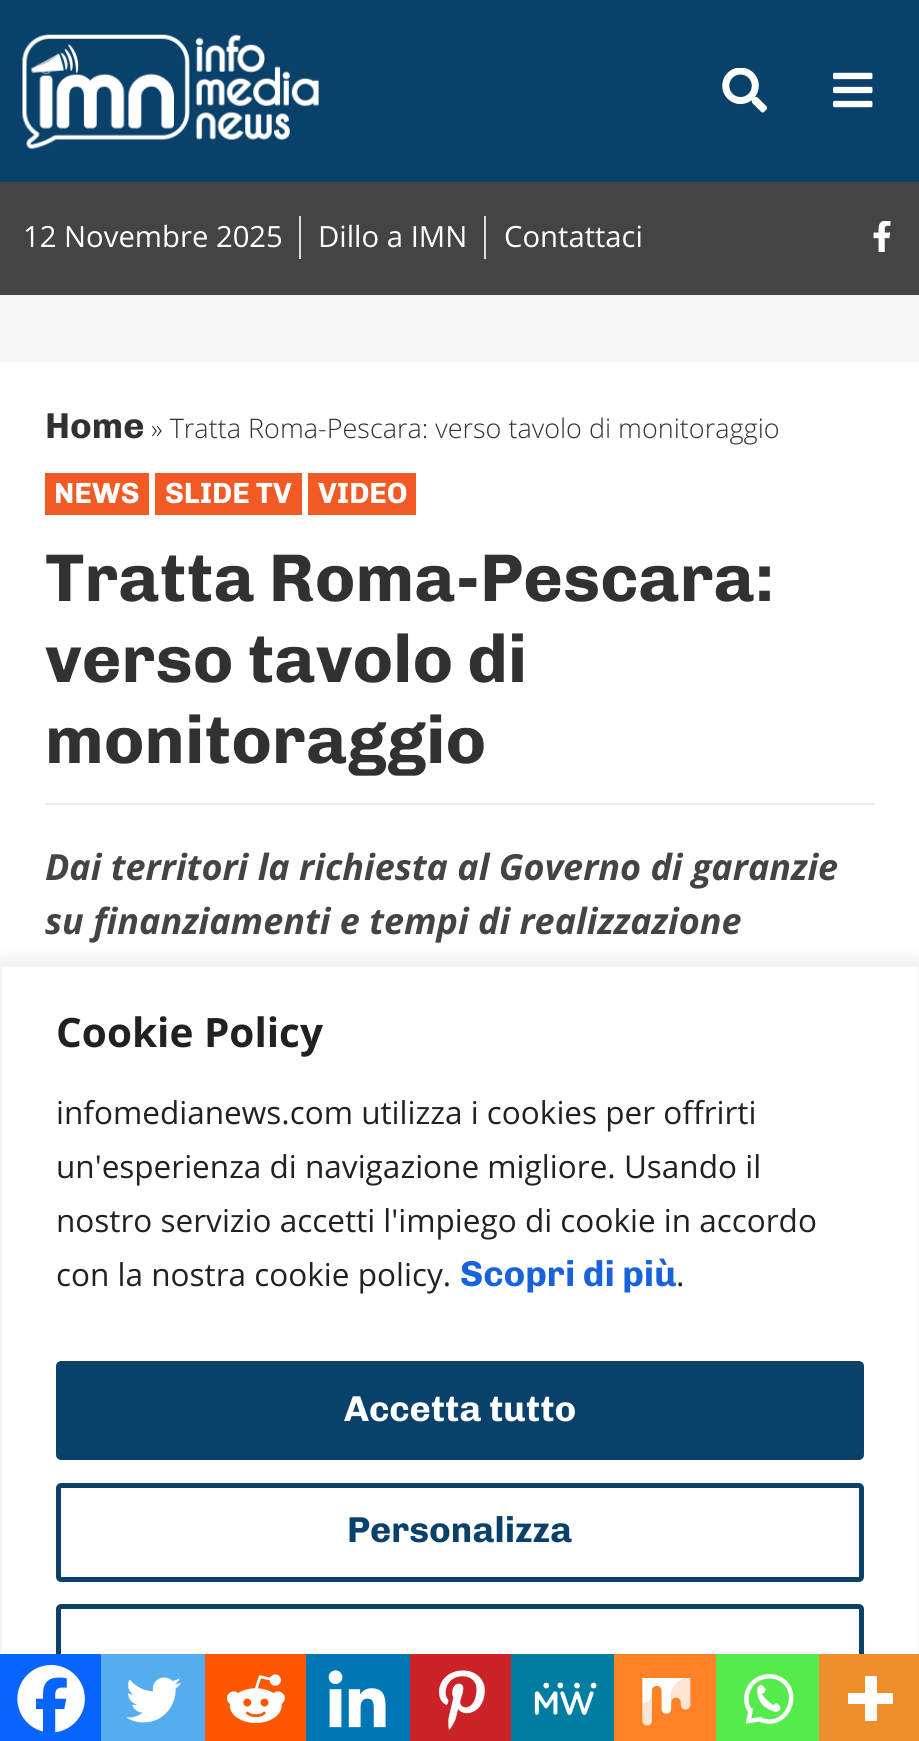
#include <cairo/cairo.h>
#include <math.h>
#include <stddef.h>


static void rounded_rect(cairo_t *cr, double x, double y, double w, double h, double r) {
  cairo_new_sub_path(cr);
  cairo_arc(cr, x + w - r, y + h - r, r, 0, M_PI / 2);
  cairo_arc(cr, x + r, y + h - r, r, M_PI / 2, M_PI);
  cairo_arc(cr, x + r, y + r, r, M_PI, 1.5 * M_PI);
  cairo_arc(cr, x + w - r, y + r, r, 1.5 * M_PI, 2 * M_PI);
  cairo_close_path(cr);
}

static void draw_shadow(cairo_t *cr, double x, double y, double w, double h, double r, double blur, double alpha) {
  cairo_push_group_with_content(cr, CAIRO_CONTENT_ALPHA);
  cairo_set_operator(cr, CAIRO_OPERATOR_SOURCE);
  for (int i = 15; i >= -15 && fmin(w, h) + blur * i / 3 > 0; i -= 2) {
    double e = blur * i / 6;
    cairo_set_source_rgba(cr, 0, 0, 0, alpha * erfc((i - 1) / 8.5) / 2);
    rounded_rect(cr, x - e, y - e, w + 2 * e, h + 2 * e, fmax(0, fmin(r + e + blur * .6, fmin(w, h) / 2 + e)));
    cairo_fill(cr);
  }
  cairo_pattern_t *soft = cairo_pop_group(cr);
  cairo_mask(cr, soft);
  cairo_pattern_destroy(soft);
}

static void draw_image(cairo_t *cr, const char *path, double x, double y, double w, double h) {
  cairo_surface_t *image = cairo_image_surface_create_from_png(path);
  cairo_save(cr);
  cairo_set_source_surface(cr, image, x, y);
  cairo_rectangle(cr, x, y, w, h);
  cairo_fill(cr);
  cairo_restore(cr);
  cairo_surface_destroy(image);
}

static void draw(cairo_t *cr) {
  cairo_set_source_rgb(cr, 247 / 255.0, 247 / 255.0, 247 / 255.0);
  cairo_paint(cr);
  cairo_set_source_rgb(cr, 10 / 255.0, 65 / 255.0, 107 / 255.0);
  cairo_rectangle(cr, 0, 0, 919, 182);
  cairo_fill(cr);
  draw_image(cr, "images/1.png", 22, 34, 297, 115);
  draw_image(cr, "images/2.png", 722, 68, 45, 45);
  draw_image(cr, "images/3.png", 833, 72, 40, 36);
  cairo_set_source_rgb(cr, 68 / 255.0, 68 / 255.0, 68 / 255.0);
  cairo_rectangle(cr, 0, 182, 919, 113);
  cairo_fill(cr);
  cairo_set_source_rgb(cr, 221 / 255.0, 221 / 255.0, 221 / 255.0);
  cairo_rectangle(cr, 299, 216, 2, 43);
  cairo_fill(cr);
  cairo_rectangle(cr, 484, 216, 2, 43);
  cairo_fill(cr);
  draw_image(cr, "images/4.png", 873, 221, 18, 31);
  cairo_set_source_rgb(cr, 1, 1, 1);
  cairo_rectangle(cr, 0, 362, 919, 603);
  cairo_fill(cr);
  cairo_set_source_rgb(cr, 241 / 255.0, 90 / 255.0, 36 / 255.0);
  cairo_rectangle(cr, 45, 473, 104, 42);
  cairo_fill(cr);
  cairo_rectangle(cr, 155, 473, 147, 42);
  cairo_fill(cr);
  cairo_rectangle(cr, 308, 473, 108, 42);
  cairo_fill(cr);
  cairo_set_source_rgb(cr, 239 / 255.0, 239 / 255.0, 239 / 255.0);
  cairo_rectangle(cr, 45, 803, 830, 2);
  cairo_fill(cr);
  cairo_set_source_rgb(cr, 172 / 255.0, 171 / 255.0, 171 / 255.0);
  draw_shadow(cr, 0, 963, 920, 776, 0, 11, 0.3);
  cairo_set_source_rgb(cr, 1, 1, 1);
  cairo_rectangle(cr, 2, 967, 916, 687);
  cairo_fill(cr);
  cairo_rectangle(cr, 1, 966, 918, 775);
  cairo_set_source_rgb(cr, 244 / 255.0, 244 / 255.0, 244 / 255.0);
  cairo_stroke(cr);
  rounded_rect(cr, 58.5, 1606.5, 803, 94, 2.5);
  cairo_set_source_rgb(cr, 10 / 255.0, 65 / 255.0, 107 / 255.0);
  cairo_set_line_width(cr, 5);
  cairo_stroke(cr);
  cairo_set_source_rgb(cr, 7 / 255.0, 101 / 255.0, 254 / 255.0);
  cairo_rectangle(cr, 0, 1654, 101, 87);
  cairo_fill(cr);
  draw_image(cr, "images/5.png", 17, 1665, 68, 68);
  cairo_set_source_rgb(cr, 85 / 255.0, 172 / 255.0, 238 / 255.0);
  cairo_rectangle(cr, 101, 1654, 104, 87);
  cairo_fill(cr);
  draw_image(cr, "images/6.png", 126, 1677, 56, 46);
  cairo_set_source_rgb(cr, 1, 87 / 255.0, 0);
  cairo_rectangle(cr, 205, 1654, 101, 87);
  cairo_fill(cr);
  draw_image(cr, "images/7.png", 226, 1674, 59, 50);
  cairo_set_source_rgb(cr, 0, 119 / 255.0, 181 / 255.0);
  cairo_rectangle(cr, 306, 1654, 104, 87);
  cairo_fill(cr);
  draw_image(cr, "images/8.png", 328, 1670, 58, 58);
  cairo_set_source_rgb(cr, 204 / 255.0, 35 / 255.0, 41 / 255.0);
  cairo_rectangle(cr, 410, 1654, 101, 87);
  cairo_fill(cr);
  draw_image(cr, "images/9.png", 439, 1670, 46, 60);
  cairo_set_source_rgb(cr, 0, 125 / 255.0, 161 / 255.0);
  cairo_rectangle(cr, 511, 1654, 103, 87);
  cairo_fill(cr);
  draw_image(cr, "images/10.png", 534, 1682, 63, 33);
  cairo_set_source_rgb(cr, 1, 130 / 255.0, 38 / 255.0);
  cairo_rectangle(cr, 614, 1654, 102, 87);
  cairo_fill(cr);
  draw_image(cr, "images/11.png", 642, 1678, 49, 48);
  cairo_set_source_rgb(cr, 85 / 255.0, 235 / 255.0, 76 / 255.0);
  cairo_rectangle(cr, 716, 1654, 103, 87);
  cairo_fill(cr);
  cairo_new_path(cr);
  cairo_move_to(cr, 761, 1720);
  cairo_curve_to(cr, 789.5, 1730.5, 804.5, 1686, 775.5, 1677);
  cairo_curve_to(cr, 769, 1675.5, 762, 1676.5, 756.5, 1680);
  cairo_curve_to(cr, 746, 1687, 743, 1701.5, 750.5, 1711.5);
  cairo_move_to(cr, 751, 1708);
  cairo_line_to(cr, 748.5, 1721);
  cairo_line_to(cr, 762, 1719);
  cairo_set_source_rgb(cr, 1, 1, 1);
  cairo_set_line_width(cr, 4.5);
  cairo_stroke(cr);
  cairo_new_path(cr);
  cairo_move_to(cr, 757.5, 1687.5);
  cairo_curve_to(cr, 756, 1699.5, 762, 1708, 775.5, 1712);
  cairo_curve_to(cr, 787, 1710, 775.5, 1699, 773.5, 1705.5);
  cairo_curve_to(cr, 767.5, 1701, 763.5, 1697, 762, 1694);
  cairo_curve_to(cr, 771, 1690, 760, 1683, 760, 1685);
  cairo_fill(cr);
  cairo_set_source_rgb(cr, 238 / 255.0, 142 / 255.0, 45 / 255.0);
  cairo_rectangle(cr, 819, 1654, 100, 87);
  cairo_fill(cr);
  cairo_set_source_rgb(cr, 1, 1, 1);
  cairo_set_fill_rule(cr, CAIRO_FILL_RULE_EVEN_ODD);
  cairo_new_path(cr);
  cairo_move_to(cr, 877, 1693);
  cairo_line_to(cr, 877, 1676);
  cairo_line_to(cr, 865, 1676);
  cairo_line_to(cr, 865, 1693);
  cairo_line_to(cr, 848, 1693);
  cairo_line_to(cr, 848, 1704);
  cairo_line_to(cr, 865, 1704);
  cairo_line_to(cr, 865, 1721);
  cairo_line_to(cr, 877, 1721);
  cairo_line_to(cr, 877, 1704);
  cairo_line_to(cr, 893, 1704);
  cairo_line_to(cr, 893, 1693);
  cairo_close_path(cr);
  cairo_fill(cr);
  cairo_set_source_rgb(cr, 10 / 255.0, 65 / 255.0, 107 / 255.0);
  rounded_rect(cr, 58.5, 1363.5, 803, 94, 2.5);
  cairo_fill_preserve(cr);
  cairo_set_line_width(cr, 5);
  cairo_stroke(cr);
  rounded_rect(cr, 58.5, 1485.5, 803, 94, 2.5);
  cairo_stroke(cr);
  cairo_select_font_face(cr, "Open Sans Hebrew", CAIRO_FONT_SLANT_NORMAL, CAIRO_FONT_WEIGHT_NORMAL);
  cairo_set_font_size(cr, 29.25);
  cairo_set_source_rgb(cr, 1, 1, 1);
  cairo_move_to(cr, 23, 247);
  cairo_show_text(cr, "12 Novembre 2025");
  cairo_move_to(cr, 318, 247);
  cairo_show_text(cr, "Dillo a IMN");
  cairo_move_to(cr, 504, 247);
  cairo_show_text(cr, "Contattaci");
  cairo_select_font_face(cr, "Chivo", CAIRO_FONT_SLANT_NORMAL, CAIRO_FONT_WEIGHT_BOLD);
  cairo_set_font_size(cr, 36);
  cairo_set_source_rgb(cr, 49 / 255.0, 49 / 255.0, 49 / 255.0);
  cairo_move_to(cr, 45, 438);
  cairo_show_text(cr, "Home");
  cairo_select_font_face(cr, "Open Sans Hebrew Light", CAIRO_FONT_SLANT_NORMAL, CAIRO_FONT_WEIGHT_NORMAL);
  cairo_set_font_size(cr, 27);
  cairo_move_to(cr, 151, 438);
  cairo_show_text(cr, "» Tratta Roma-Pescara: verso tavolo di monitoraggio");
  cairo_select_font_face(cr, "Chivo", CAIRO_FONT_SLANT_NORMAL, CAIRO_FONT_WEIGHT_BOLD);
  cairo_set_font_size(cr, 29.25);
  cairo_set_source_rgb(cr, 1, 1, 1);
  cairo_move_to(cr, 54, 503);
  cairo_show_text(cr, "NEWS");
  cairo_move_to(cr, 165, 503);
  cairo_show_text(cr, "SLIDE TV");
  cairo_move_to(cr, 318, 503);
  cairo_show_text(cr, "VIDEO");
  cairo_set_font_size(cr, 67.5);
  cairo_set_source_rgb(cr, 49 / 255.0, 49 / 255.0, 49 / 255.0);
  cairo_move_to(cr, 45, 601);
  cairo_show_text(cr, "Tratta Roma-Pescara:");
  cairo_move_to(cr, 45, 682);
  cairo_show_text(cr, "verso tavolo di");
  cairo_move_to(cr, 45, 763);
  cairo_show_text(cr, "monitoraggio");
  cairo_select_font_face(cr, "Open Sans Hebrew", CAIRO_FONT_SLANT_ITALIC, CAIRO_FONT_WEIGHT_BOLD);
  cairo_set_font_size(cr, 36);
  cairo_set_source_rgb(cr, 68 / 255.0, 68 / 255.0, 68 / 255.0);
  cairo_move_to(cr, 45, 880);
  cairo_show_text(cr, "Dai territori la richiesta al Governo di garanzie");
  cairo_move_to(cr, 45, 934);
  cairo_show_text(cr, "su finanziamenti e tempi di realizzazione");
  cairo_select_font_face(cr, "Open Sans Hebrew", CAIRO_FONT_SLANT_NORMAL, CAIRO_FONT_WEIGHT_BOLD);
  cairo_set_font_size(cr, 40.5);
  cairo_set_source_rgb(cr, 33 / 255.0, 33 / 255.0, 33 / 255.0);
  cairo_move_to(cr, 56, 1047);
  cairo_show_text(cr, "Cookie Policy");
  cairo_select_font_face(cr, "Open Sans Hebrew", CAIRO_FONT_SLANT_NORMAL, CAIRO_FONT_WEIGHT_NORMAL);
  cairo_set_font_size(cr, 31.5);
  cairo_move_to(cr, 56, 1124);
  cairo_show_text(cr, "infomedianews.com utilizza i cookies per offrirti");
  cairo_move_to(cr, 56, 1178);
  cairo_show_text(cr, "un'esperienza di navigazione migliore. Usando il");
  cairo_move_to(cr, 56, 1232);
  cairo_show_text(cr, "nostro servizio accetti l'impiego di cookie in accordo");
  cairo_move_to(cr, 56, 1286);
  cairo_show_text(cr, "con la nostra cookie policy.");
  cairo_select_font_face(cr, "Chivo", CAIRO_FONT_SLANT_NORMAL, CAIRO_FONT_WEIGHT_BOLD);
  cairo_set_font_size(cr, 36);
  cairo_set_source_rgb(cr, 24 / 255.0, 99 / 255.0, 220 / 255.0);
  cairo_move_to(cr, 460, 1286);
  cairo_show_text(cr, "Scopri di più");
  cairo_select_font_face(cr, "Open Sans Hebrew", CAIRO_FONT_SLANT_NORMAL, CAIRO_FONT_WEIGHT_NORMAL);
  cairo_set_font_size(cr, 31.5);
  cairo_set_source_rgb(cr, 33 / 255.0, 33 / 255.0, 33 / 255.0);
  cairo_move_to(cr, 676, 1286);
  cairo_show_text(cr, ".");
  cairo_select_font_face(cr, "Chivo", CAIRO_FONT_SLANT_NORMAL, CAIRO_FONT_WEIGHT_BOLD);
  cairo_set_font_size(cr, 36);
  cairo_set_source_rgb(cr, 1, 1, 1);
  cairo_move_to(cr, 344, 1421);
  cairo_show_text(cr, "Accetta tutto");
  cairo_set_source_rgb(cr, 10 / 255.0, 65 / 255.0, 107 / 255.0);
  cairo_move_to(cr, 347, 1542);
  cairo_show_text(cr, "Personalizza");
}

int main(void) {
  cairo_surface_t *surface = cairo_image_surface_create(CAIRO_FORMAT_RGB24, 919, 1741);
  cairo_t *cr = cairo_create(surface);
  cairo_font_options_t *options = cairo_font_options_create();
  cairo_font_options_set_hint_metrics(options, CAIRO_HINT_METRICS_OFF);
  cairo_font_options_set_hint_style(options, CAIRO_HINT_STYLE_NONE);
  cairo_set_font_options(cr, options);
  cairo_set_miter_limit(cr, 4);
  draw(cr);
  cairo_surface_write_to_png(surface, "out.png");
  cairo_font_options_destroy(options);
  cairo_destroy(cr);
  cairo_surface_destroy(surface);
  return 0;
}
